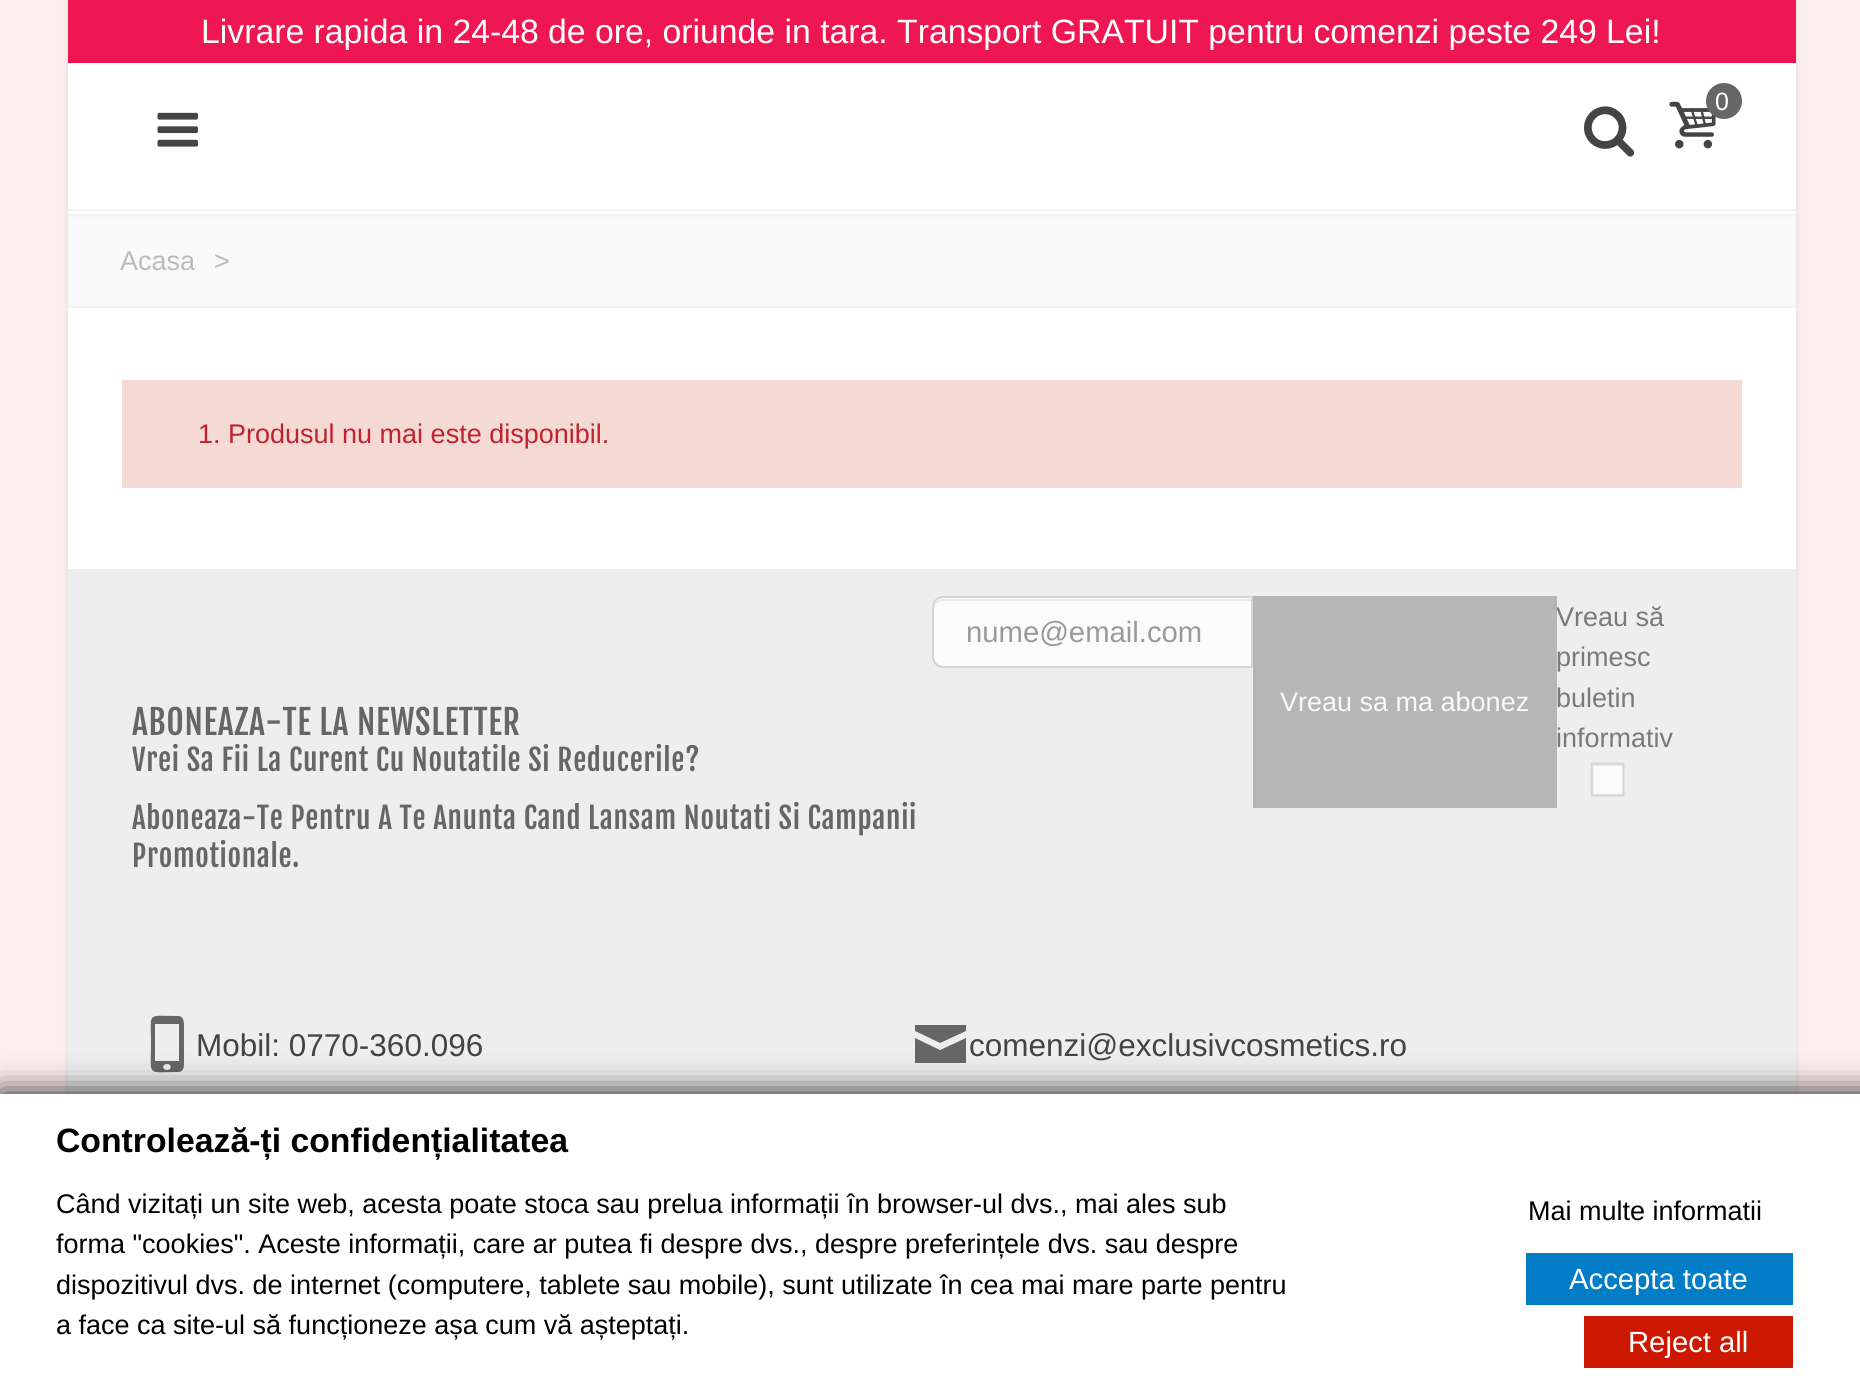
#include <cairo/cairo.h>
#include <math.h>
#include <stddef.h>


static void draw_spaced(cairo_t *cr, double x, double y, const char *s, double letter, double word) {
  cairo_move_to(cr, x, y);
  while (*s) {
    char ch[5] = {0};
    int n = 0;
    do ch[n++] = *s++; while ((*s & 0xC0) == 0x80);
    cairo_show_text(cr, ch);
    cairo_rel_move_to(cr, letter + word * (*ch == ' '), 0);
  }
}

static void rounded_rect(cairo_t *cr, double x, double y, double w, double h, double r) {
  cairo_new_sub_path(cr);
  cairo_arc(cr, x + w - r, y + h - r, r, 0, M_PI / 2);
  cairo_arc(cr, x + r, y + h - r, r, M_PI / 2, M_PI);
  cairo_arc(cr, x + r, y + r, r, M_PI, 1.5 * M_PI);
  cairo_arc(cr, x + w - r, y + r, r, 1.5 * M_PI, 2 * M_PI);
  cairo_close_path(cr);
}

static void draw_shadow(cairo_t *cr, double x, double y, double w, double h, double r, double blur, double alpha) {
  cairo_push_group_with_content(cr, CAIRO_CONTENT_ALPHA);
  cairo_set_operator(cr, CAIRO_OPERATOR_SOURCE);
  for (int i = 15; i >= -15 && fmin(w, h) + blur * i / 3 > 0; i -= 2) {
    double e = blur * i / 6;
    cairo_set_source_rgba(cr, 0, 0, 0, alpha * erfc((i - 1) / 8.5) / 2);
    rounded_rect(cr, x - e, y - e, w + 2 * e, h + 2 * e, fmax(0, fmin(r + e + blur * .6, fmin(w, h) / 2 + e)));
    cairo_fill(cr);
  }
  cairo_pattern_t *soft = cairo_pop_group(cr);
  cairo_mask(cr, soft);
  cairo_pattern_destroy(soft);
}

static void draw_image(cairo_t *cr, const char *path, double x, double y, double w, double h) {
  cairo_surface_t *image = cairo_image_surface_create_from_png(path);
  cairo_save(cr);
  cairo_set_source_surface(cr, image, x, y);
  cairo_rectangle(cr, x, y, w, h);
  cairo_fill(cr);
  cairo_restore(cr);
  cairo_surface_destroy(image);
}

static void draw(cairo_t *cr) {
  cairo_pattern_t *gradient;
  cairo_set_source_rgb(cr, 253 / 255.0, 239 / 255.0, 238 / 255.0);
  cairo_paint(cr);
  cairo_set_source_rgb(cr, 0, 0, 0);
  draw_shadow(cr, 68, 0, 1728, 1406, 0, 3.5, 0.1);
  cairo_set_source_rgb(cr, 1, 1, 1);
  cairo_rectangle(cr, 68, 63, 1728, 151);
  cairo_fill(cr);
  cairo_set_source_rgb(cr, 244 / 255.0, 244 / 255.0, 244 / 255.0);
  cairo_rectangle(cr, 68, 209, 1728, 2);
  cairo_fill(cr);
  cairo_set_source_rgb(cr, 238 / 255.0, 23 / 255.0, 81 / 255.0);
  cairo_rectangle(cr, 68, 0, 1728, 63);
  cairo_fill(cr);
  draw_image(cr, "images/1.png", 1669, 101, 47, 48);
  cairo_set_source_rgb(cr, 102 / 255.0, 102 / 255.0, 102 / 255.0);
  cairo_arc(cr, 1724, 101, 18, 0, 2 * M_PI);
  cairo_fill(cr);
  draw_image(cr, "images/2.png", 1584, 106, 51, 51);
  draw_image(cr, "images/3.png", 157, 112, 41, 35);
  gradient = cairo_pattern_create_linear(932, 214, 932, 308);
  cairo_pattern_add_color_stop_rgba(gradient, 0, 242 / 255.0, 242 / 255.0, 242 / 255.0, 1);
  cairo_pattern_add_color_stop_rgba(gradient, 0.05, 249 / 255.0, 249 / 255.0, 249 / 255.0, 1);
  cairo_pattern_add_color_stop_rgba(gradient, 0.95, 249 / 255.0, 249 / 255.0, 249 / 255.0, 1);
  cairo_pattern_add_color_stop_rgba(gradient, 1, 242 / 255.0, 242 / 255.0, 242 / 255.0, 1);
  cairo_set_source(cr, gradient);
  cairo_pattern_destroy(gradient);
  cairo_rectangle(cr, 68, 214, 1728, 94);
  cairo_fill(cr);
  cairo_set_source_rgb(cr, 1, 1, 1);
  cairo_rectangle(cr, 68, 308, 1728, 261);
  cairo_fill(cr);
  cairo_set_source_rgb(cr, 245 / 255.0, 218 / 255.0, 211 / 255.0);
  cairo_rectangle(cr, 122, 380, 1620, 108);
  cairo_fill(cr);
  cairo_set_source_rgb(cr, 238 / 255.0, 238 / 255.0, 238 / 255.0);
  cairo_rectangle(cr, 68, 569, 1728, 525);
  cairo_fill(cr);
  cairo_set_source_rgb(cr, 251 / 255.0, 251 / 255.0, 251 / 255.0);
  cairo_new_path(cr);
  cairo_move_to(cr, 943, 596);
  cairo_line_to(cr, 1253, 596);
  cairo_line_to(cr, 1253, 668);
  cairo_line_to(cr, 943, 668);
  cairo_curve_to(cr, 937, 668, 932, 663, 932, 657);
  cairo_line_to(cr, 932, 607);
  cairo_curve_to(cr, 932, 601, 937, 596, 943, 596);
  cairo_close_path(cr);
  cairo_fill(cr);
  cairo_set_source_rgb(cr, 232 / 255.0, 232 / 255.0, 232 / 255.0);
  cairo_new_path(cr);
  cairo_move_to(cr, 943, 601);
  cairo_line_to(cr, 1251, 601);
  cairo_line_to(cr, 1251, 599);
  cairo_line_to(cr, 943, 599);
  cairo_curve_to(cr, 938, 599, 934, 603, 934, 608);
  cairo_line_to(cr, 934, 610);
  cairo_curve_to(cr, 934, 605, 938, 601, 943, 601);
  cairo_close_path(cr);
  cairo_fill(cr);
  cairo_new_path(cr);
  cairo_move_to(cr, 943, 597);
  cairo_line_to(cr, 1252, 597);
  cairo_line_to(cr, 1252, 667);
  cairo_line_to(cr, 943, 667);
  cairo_curve_to(cr, 937.5, 667, 933, 662.5, 933, 657);
  cairo_line_to(cr, 933, 607);
  cairo_curve_to(cr, 933, 601.5, 937.5, 597, 943, 597);
  cairo_close_path(cr);
  cairo_set_source_rgb(cr, 214 / 255.0, 212 / 255.0, 212 / 255.0);
  cairo_stroke(cr);
  draw_image(cr, "images/4.png", 1590, 762, 35, 35);
  cairo_set_source_rgb(cr, 102 / 255.0, 102 / 255.0, 102 / 255.0);
  cairo_new_path(cr);
  cairo_move_to(cr, 178, 1016);
  cairo_curve_to(cr, 185, 1016, 184, 1025, 184, 1029);
  cairo_line_to(cr, 184, 1059);
  cairo_curve_to(cr, 184, 1064, 185, 1072, 178, 1072);
  cairo_curve_to(cr, 146, 1072, 151, 1077, 151, 1044);
  cairo_curve_to(cr, 151, 1011, 146, 1016, 178, 1016);
  cairo_close_path(cr);
  cairo_move_to(cr, 167, 1070);
  cairo_curve_to(cr, 172, 1070, 172, 1064, 167, 1064);
  cairo_curve_to(cr, 162, 1064, 162, 1070, 167, 1070);
  cairo_close_path(cr);
  cairo_move_to(cr, 179, 1061);
  cairo_line_to(cr, 179, 1024);
  cairo_line_to(cr, 155, 1024);
  cairo_line_to(cr, 155, 1061);
  cairo_close_path(cr);
  cairo_fill(cr);
  cairo_new_path(cr);
  cairo_move_to(cr, 940, 1043);
  cairo_line_to(cr, 915, 1031);
  cairo_line_to(cr, 915, 1025);
  cairo_line_to(cr, 966, 1025);
  cairo_line_to(cr, 966, 1031);
  cairo_close_path(cr);
  cairo_move_to(cr, 940, 1050);
  cairo_line_to(cr, 966, 1038);
  cairo_line_to(cr, 966, 1063);
  cairo_line_to(cr, 915, 1063);
  cairo_line_to(cr, 915, 1038);
  cairo_close_path(cr);
  cairo_fill(cr);
  cairo_set_source_rgb(cr, 18 / 255.0, 18 / 255.0, 18 / 255.0);
  draw_shadow(cr, 0, 1094, 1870, 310, 0, 16, 1);
  cairo_set_source_rgb(cr, 1, 1, 1);
  cairo_rectangle(cr, 0, 1094, 1860, 301);
  cairo_fill(cr);
  cairo_set_source_rgb(cr, 0, 125 / 255.0, 198 / 255.0);
  cairo_rectangle(cr, 1526, 1253, 267, 52);
  cairo_fill(cr);
  cairo_set_source_rgb(cr, 204 / 255.0, 24 / 255.0, 0);
  cairo_rectangle(cr, 1584, 1316, 209, 52);
  cairo_fill(cr);
  cairo_select_font_face(cr, "Liberation Sans", CAIRO_FONT_SLANT_NORMAL, CAIRO_FONT_WEIGHT_NORMAL);
  cairo_set_font_size(cr, 33.75);
  cairo_set_source_rgb(cr, 1, 1, 1);
  cairo_move_to(cr, 201, 43);
  cairo_show_text(cr, "Livrare rapida in 24-48 de ore, oriunde in tara. Transport GRATUIT pentru comenzi peste 249 Lei!");
  cairo_set_font_size(cr, 25);
  cairo_move_to(cr, 1715, 110);
  cairo_show_text(cr, "0");
  cairo_set_font_size(cr, 27);
  cairo_set_source_rgb(cr, 187 / 255.0, 187 / 255.0, 187 / 255.0);
  cairo_move_to(cr, 120, 270);
  cairo_show_text(cr, "Acasa");
  cairo_move_to(cr, 214, 270);
  cairo_show_text(cr, ">");
  cairo_set_source_rgb(cr, 192 / 255.0, 34 / 255.0, 48 / 255.0);
  cairo_move_to(cr, 198, 443);
  cairo_show_text(cr, "1. Produsul nu mai este disponibil.");
  cairo_set_font_size(cr, 29.25);
  cairo_set_source_rgb(cr, 153 / 255.0, 153 / 255.0, 153 / 255.0);
  cairo_move_to(cr, 966, 642);
  cairo_show_text(cr, "nume@email.com");
  cairo_set_font_size(cr, 27);
  cairo_set_source_rgb(cr, 122 / 255.0, 122 / 255.0, 122 / 255.0);
  cairo_move_to(cr, 1556, 626);
  cairo_show_text(cr, "Vreau să");
  cairo_move_to(cr, 1556, 666);
  cairo_show_text(cr, "primesc");
  cairo_move_to(cr, 1556, 707);
  cairo_show_text(cr, "buletin");
  cairo_move_to(cr, 1556, 747);
  cairo_show_text(cr, "informativ");
  cairo_set_source_rgba(cr, 153 / 255.0, 153 / 255.0, 153 / 255.0, 0.65);
  cairo_rectangle(cr, 1253, 596, 304, 212);
  cairo_fill(cr);
  cairo_set_source_rgb(cr, 249 / 255.0, 249 / 255.0, 249 / 255.0);
  cairo_move_to(cr, 1280, 711);
  cairo_show_text(cr, "Vreau sa ma abonez");
  cairo_select_font_face(cr, "Fjalla One", CAIRO_FONT_SLANT_NORMAL, CAIRO_FONT_WEIGHT_NORMAL);
  cairo_set_font_size(cr, 33.75);
  cairo_set_source_rgb(cr, 102 / 255.0, 102 / 255.0, 102 / 255.0);
  draw_spaced(cr, 132, 735, "ABONEAZA-TE LA NEWSLETTER", 0.67, 0);
  cairo_set_font_size(cr, 29.25);
  draw_spaced(cr, 132, 771, "Vrei Sa Fii La Curent Cu Noutatile Si Reducerile?", 0.67, 0);
  draw_spaced(cr, 132, 829, "Aboneaza-Te Pentru A Te Anunta Cand Lansam Noutati Si Campanii", 0.67, 0);
  draw_spaced(cr, 132, 867, "Promotionale.", 0.67, 0);
  cairo_select_font_face(cr, "Liberation Sans", CAIRO_FONT_SLANT_NORMAL, CAIRO_FONT_WEIGHT_NORMAL);
  cairo_set_font_size(cr, 31.5);
  cairo_set_source_rgb(cr, 68 / 255.0, 68 / 255.0, 68 / 255.0);
  cairo_move_to(cr, 196, 1056);
  cairo_show_text(cr, "Mobil: 0770-360.096");
  cairo_move_to(cr, 969, 1056);
  cairo_show_text(cr, "comenzi@exclusivcosmetics.ro");
  cairo_select_font_face(cr, "Liberation Sans", CAIRO_FONT_SLANT_NORMAL, CAIRO_FONT_WEIGHT_BOLD);
  cairo_set_font_size(cr, 33.75);
  cairo_set_source_rgb(cr, 0, 0, 0);
  cairo_move_to(cr, 56, 1152);
  cairo_show_text(cr, "Controlează-ți confidențialitatea");
  cairo_select_font_face(cr, "Liberation Sans", CAIRO_FONT_SLANT_NORMAL, CAIRO_FONT_WEIGHT_NORMAL);
  cairo_set_font_size(cr, 27);
  cairo_move_to(cr, 56, 1213);
  cairo_show_text(cr, "Când vizitați un site web, acesta poate stoca sau prelua informații în browser-ul dvs., mai ales sub");
  cairo_move_to(cr, 56, 1253);
  cairo_show_text(cr, "forma \"cookies\". Aceste informații, care ar putea fi despre dvs., despre preferințele dvs. sau despre");
  cairo_move_to(cr, 56, 1294);
  cairo_show_text(cr, "dispozitivul dvs. de internet (computere, tablete sau mobile), sunt utilizate în cea mai mare parte pentru");
  cairo_move_to(cr, 56, 1334);
  cairo_show_text(cr, "a face ca site-ul să funcționeze așa cum vă așteptați.");
  cairo_move_to(cr, 1528, 1220);
  cairo_show_text(cr, "Mai multe informatii");
  cairo_set_font_size(cr, 29.25);
  cairo_set_source_rgb(cr, 1, 1, 1);
  cairo_move_to(cr, 1569, 1289);
  cairo_show_text(cr, "Accepta toate");
  cairo_move_to(cr, 1628, 1352);
  cairo_show_text(cr, "Reject all");
}

int main(void) {
  cairo_surface_t *surface = cairo_image_surface_create(CAIRO_FORMAT_RGB24, 1860, 1395);
  cairo_t *cr = cairo_create(surface);
  cairo_font_options_t *options = cairo_font_options_create();
  cairo_font_options_set_hint_metrics(options, CAIRO_HINT_METRICS_OFF);
  cairo_font_options_set_hint_style(options, CAIRO_HINT_STYLE_NONE);
  cairo_set_font_options(cr, options);
  cairo_set_miter_limit(cr, 4);
  draw(cr);
  cairo_surface_write_to_png(surface, "out.png");
  cairo_font_options_destroy(options);
  cairo_destroy(cr);
  cairo_surface_destroy(surface);
  return 0;
}
